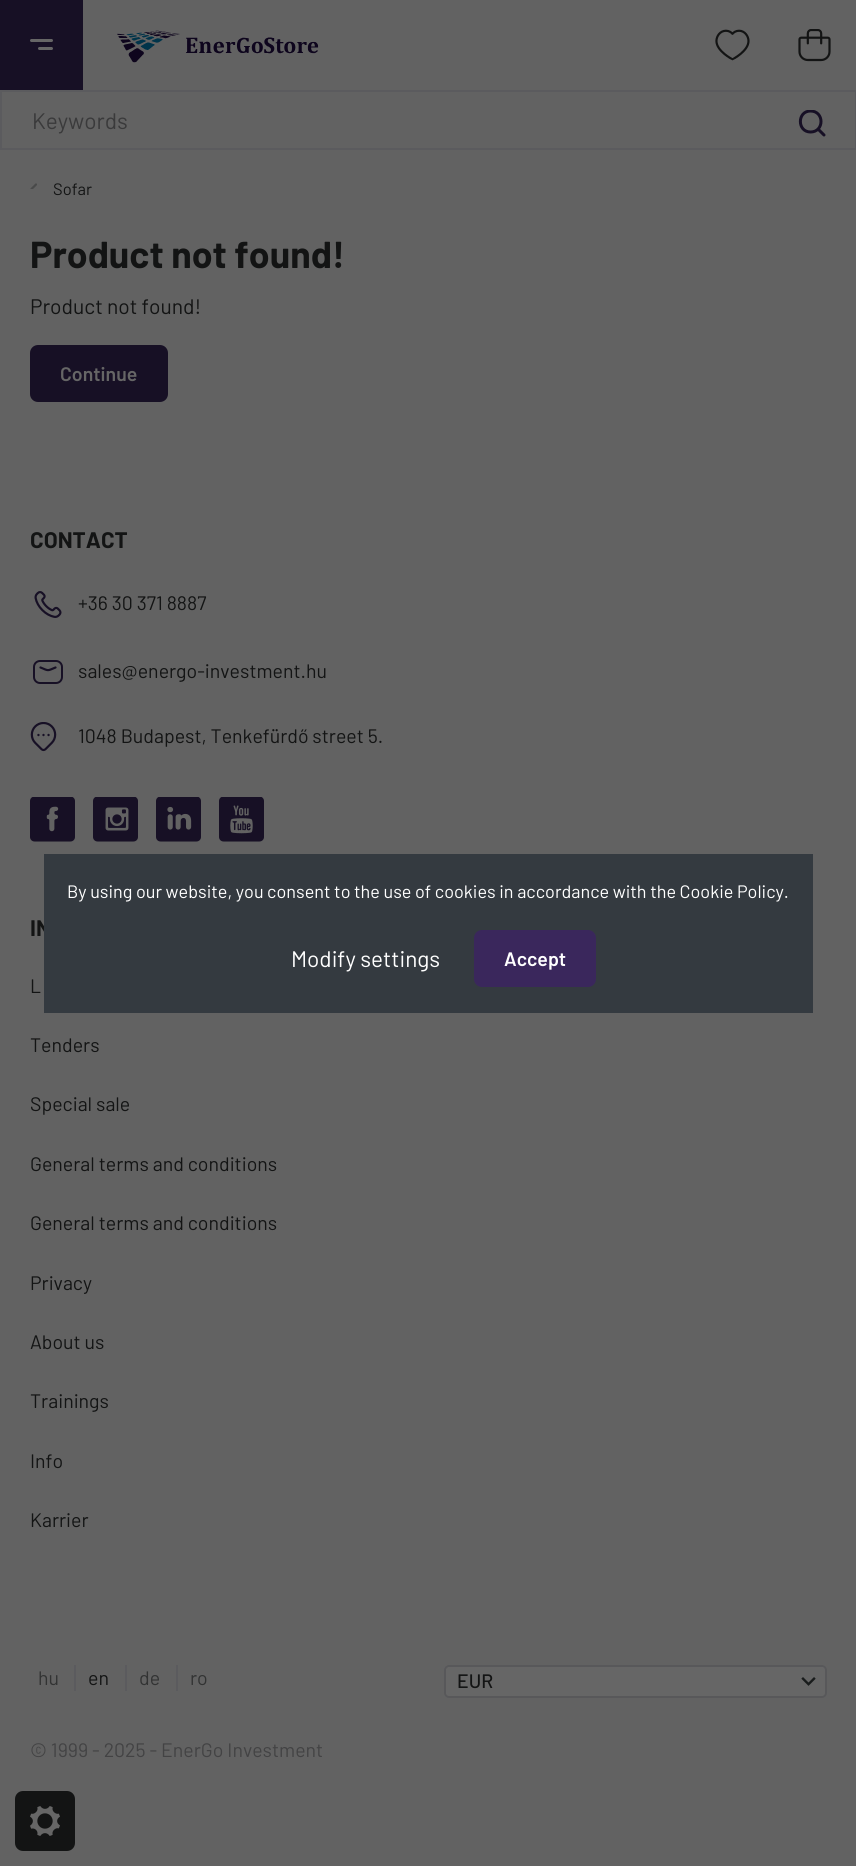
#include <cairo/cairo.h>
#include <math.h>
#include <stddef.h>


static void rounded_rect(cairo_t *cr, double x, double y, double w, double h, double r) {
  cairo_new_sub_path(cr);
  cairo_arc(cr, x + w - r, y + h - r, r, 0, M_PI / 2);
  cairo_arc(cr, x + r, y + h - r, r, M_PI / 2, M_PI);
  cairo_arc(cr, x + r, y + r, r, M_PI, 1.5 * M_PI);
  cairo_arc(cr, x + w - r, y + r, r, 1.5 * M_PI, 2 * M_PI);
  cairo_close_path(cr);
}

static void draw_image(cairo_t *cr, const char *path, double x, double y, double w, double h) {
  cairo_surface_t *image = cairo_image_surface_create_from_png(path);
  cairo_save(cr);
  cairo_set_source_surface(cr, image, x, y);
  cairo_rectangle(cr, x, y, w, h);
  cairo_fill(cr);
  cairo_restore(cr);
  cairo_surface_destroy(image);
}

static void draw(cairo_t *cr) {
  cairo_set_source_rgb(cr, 98 / 255.0, 98 / 255.0, 98 / 255.0);
  cairo_paint(cr);
  cairo_set_source_rgb(cr, 23 / 255.0, 16 / 255.0, 37 / 255.0);
  cairo_rectangle(cr, 0, 0, 83, 90);
  cairo_fill(cr);
  cairo_set_source_rgb(cr, 102 / 255.0, 102 / 255.0, 102 / 255.0);
  rounded_rect(cr, 30, 39, 23, 3, 1.5);
  cairo_fill(cr);
  rounded_rect(cr, 38, 47, 15, 3, 1.5);
  cairo_fill(cr);
  draw_image(cr, "images/1.png", 117, 30, 202, 33);
  draw_image(cr, "images/2.png", 715, 29, 35, 32);
  draw_image(cr, "images/3.png", 798, 29, 33, 33);
  cairo_rectangle(cr, 1, 91, 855, 58);
  cairo_set_source_rgb(cr, 91 / 255.0, 91 / 255.0, 94 / 255.0);
  cairo_stroke(cr);
  cairo_save(cr);
  cairo_rectangle(cr, 798, 110, 29, 27);
  cairo_clip(cr);
  cairo_new_path(cr);
  cairo_move_to(cr, 824, 135);
  cairo_line_to(cr, 818, 129);
  cairo_move_to(cr, 810.5, 132);
  cairo_curve_to(cr, 797, 132, 797, 111, 810.5, 111);
  cairo_curve_to(cr, 824.5, 111, 824.5, 132, 810.5, 132);
  cairo_close_path(cr);
  cairo_set_source_rgb(cr, 23 / 255.0, 16 / 255.0, 37 / 255.0);
  cairo_set_line_width(cr, 3);
  cairo_set_line_cap(cr, CAIRO_LINE_CAP_ROUND);
  cairo_set_line_join(cr, CAIRO_LINE_JOIN_ROUND);
  cairo_stroke(cr);
  cairo_restore(cr);
  draw_image(cr, "images/4.png", 30, 183, 7, 6);
  cairo_set_source_rgb(cr, 23 / 255.0, 16 / 255.0, 37 / 255.0);
  rounded_rect(cr, 30, 345, 138, 57, 8);
  cairo_fill(cr);
  draw_image(cr, "images/5.png", 34, 591, 28, 27);
  rounded_rect(cr, 34, 661, 28, 22, 6);
  cairo_stroke(cr);
  cairo_new_path(cr);
  cairo_move_to(cr, 40.5, 667.5);
  cairo_curve_to(cr, 49, 671, 47, 671, 55.5, 667.5);
  cairo_set_line_width(cr, 2.2);
  cairo_set_line_cap(cr, CAIRO_LINE_CAP_ROUND);
  cairo_set_line_join(cr, CAIRO_LINE_JOIN_ROUND);
  cairo_stroke(cr);
  draw_image(cr, "images/6.png", 30, 722, 27, 30);
  draw_image(cr, "images/7.png", 30, 797, 45, 45);
  draw_image(cr, "images/8.png", 93, 797, 45, 45);
  draw_image(cr, "images/9.png", 156, 797, 45, 45);
  draw_image(cr, "images/10.png", 219, 797, 45, 45);
  cairo_set_source_rgb(cr, 91 / 255.0, 91 / 255.0, 94 / 255.0);
  cairo_rectangle(cr, 74, 1665, 2, 26);
  cairo_fill(cr);
  cairo_rectangle(cr, 125, 1665, 2, 26);
  cairo_fill(cr);
  cairo_rectangle(cr, 176, 1665, 2, 26);
  cairo_fill(cr);
  cairo_set_source_rgb(cr, 102 / 255.0, 102 / 255.0, 102 / 255.0);
  rounded_rect(cr, 444, 1665, 383, 33, 5);
  cairo_fill(cr);
  draw_image(cr, "images/11.png", 801, 1677, 15, 9);
  rounded_rect(cr, 445, 1666, 381, 31, 4);
  cairo_set_source_rgb(cr, 88 / 255.0, 88 / 255.0, 90 / 255.0);
  cairo_set_line_width(cr, 2);
  cairo_set_line_cap(cr, CAIRO_LINE_CAP_BUTT);
  cairo_set_line_join(cr, CAIRO_LINE_JOIN_MITER);
  cairo_stroke(cr);
  cairo_set_source_rgb(cr, 19 / 255.0, 20 / 255.0, 20 / 255.0);
  rounded_rect(cr, 15, 1791, 60, 60, 8);
  cairo_fill(cr);
  draw_image(cr, "images/12.png", 30, 1806, 30, 30);
  cairo_select_font_face(cr, "Barlow", CAIRO_FONT_SLANT_NORMAL, CAIRO_FONT_WEIGHT_NORMAL);
  cairo_set_font_size(cr, 22.5);
  cairo_set_source_rgb(cr, 58 / 255.0, 58 / 255.0, 59 / 255.0);
  cairo_move_to(cr, 32, 129);
  cairo_show_text(cr, "Keywords");
  cairo_set_font_size(cr, 16.5);
  cairo_set_source_rgb(cr, 19 / 255.0, 20 / 255.0, 20 / 255.0);
  cairo_move_to(cr, 53, 195);
  cairo_show_text(cr, "Sofar");
  cairo_select_font_face(cr, "Barlow", CAIRO_FONT_SLANT_NORMAL, CAIRO_FONT_WEIGHT_BOLD);
  cairo_set_font_size(cr, 37.5);
  cairo_move_to(cr, 30, 268);
  cairo_show_text(cr, "Product not found!");
  cairo_select_font_face(cr, "Barlow", CAIRO_FONT_SLANT_NORMAL, CAIRO_FONT_WEIGHT_NORMAL);
  cairo_set_font_size(cr, 21);
  cairo_move_to(cr, 30, 314);
  cairo_show_text(cr, "Product not found!");
  cairo_select_font_face(cr, "Barlow SemiBold", CAIRO_FONT_SLANT_NORMAL, CAIRO_FONT_WEIGHT_NORMAL);
  cairo_set_font_size(cr, 19.5);
  cairo_set_source_rgb(cr, 102 / 255.0, 102 / 255.0, 102 / 255.0);
  cairo_move_to(cr, 60, 381);
  cairo_show_text(cr, "Continue");
  cairo_select_font_face(cr, "Barlow", CAIRO_FONT_SLANT_NORMAL, CAIRO_FONT_WEIGHT_BOLD);
  cairo_set_font_size(cr, 22.5);
  cairo_set_source_rgb(cr, 19 / 255.0, 20 / 255.0, 20 / 255.0);
  cairo_move_to(cr, 30, 548);
  cairo_show_text(cr, "CONTACT");
  cairo_select_font_face(cr, "Barlow", CAIRO_FONT_SLANT_NORMAL, CAIRO_FONT_WEIGHT_NORMAL);
  cairo_set_font_size(cr, 19.5);
  cairo_move_to(cr, 78, 610);
  cairo_show_text(cr, "+36 30 371 8887");
  cairo_move_to(cr, 78, 678);
  cairo_show_text(cr, "sales@energo-investment.hu");
  cairo_move_to(cr, 78, 743);
  cairo_show_text(cr, "1048 Budapest, Tenkefürdő street 5.");
  cairo_select_font_face(cr, "Barlow", CAIRO_FONT_SLANT_NORMAL, CAIRO_FONT_WEIGHT_BOLD);
  cairo_set_font_size(cr, 22.5);
  cairo_move_to(cr, 30, 936);
  cairo_show_text(cr, "IN");
  cairo_select_font_face(cr, "Barlow", CAIRO_FONT_SLANT_NORMAL, CAIRO_FONT_WEIGHT_NORMAL);
  cairo_set_font_size(cr, 19.5);
  cairo_move_to(cr, 30, 993);
  cairo_show_text(cr, "L");
  cairo_move_to(cr, 30, 1052);
  cairo_show_text(cr, "Tenders");
  cairo_move_to(cr, 30, 1111);
  cairo_show_text(cr, "Special sale");
  cairo_move_to(cr, 30, 1171);
  cairo_show_text(cr, "General terms and conditions");
  cairo_move_to(cr, 30, 1230);
  cairo_show_text(cr, "General terms and conditions");
  cairo_move_to(cr, 30, 1290);
  cairo_show_text(cr, "Privacy");
  cairo_move_to(cr, 30, 1349);
  cairo_show_text(cr, "About us");
  cairo_move_to(cr, 30, 1408);
  cairo_show_text(cr, "Trainings");
  cairo_move_to(cr, 30, 1468);
  cairo_show_text(cr, "Info");
  cairo_move_to(cr, 30, 1527);
  cairo_show_text(cr, "Karrier");
  cairo_set_source_rgb(cr, 50 / 255.0, 51 / 255.0, 51 / 255.0);
  cairo_move_to(cr, 38, 1685);
  cairo_show_text(cr, "hu");
  cairo_set_source_rgb(cr, 19 / 255.0, 20 / 255.0, 20 / 255.0);
  cairo_move_to(cr, 88, 1685);
  cairo_show_text(cr, "en");
  cairo_set_source_rgb(cr, 50 / 255.0, 51 / 255.0, 51 / 255.0);
  cairo_move_to(cr, 139, 1685);
  cairo_show_text(cr, "de");
  cairo_move_to(cr, 190, 1685);
  cairo_show_text(cr, "ro");
  cairo_select_font_face(cr, "Barlow Medium", CAIRO_FONT_SLANT_NORMAL, CAIRO_FONT_WEIGHT_NORMAL);
  cairo_set_source_rgb(cr, 19 / 255.0, 20 / 255.0, 20 / 255.0);
  cairo_move_to(cr, 457, 1688);
  cairo_show_text(cr, "EUR");
  cairo_select_font_face(cr, "Barlow", CAIRO_FONT_SLANT_NORMAL, CAIRO_FONT_WEIGHT_NORMAL);
  cairo_set_source_rgb(cr, 67 / 255.0, 67 / 255.0, 68 / 255.0);
  cairo_move_to(cr, 30, 1757);
  cairo_show_text(cr, "© 1999 - 2025 - EnerGo Investment");
  cairo_set_source_rgb(cr, 52 / 255.0, 58 / 255.0, 64 / 255.0);
  cairo_rectangle(cr, 44, 854, 769, 159);
  cairo_fill(cr);
  cairo_set_font_size(cr, 18);
  cairo_set_source_rgb(cr, 1, 1, 1);
  cairo_move_to(cr, 67, 898);
  cairo_show_text(cr, "By using our website, you consent to the use of cookies in accordance with the Cookie Policy.");
  cairo_set_font_size(cr, 22.5);
  cairo_move_to(cr, 291, 967);
  cairo_show_text(cr, "Modify settings");
  cairo_set_source_rgb(cr, 58 / 255.0, 39 / 255.0, 92 / 255.0);
  rounded_rect(cr, 474, 930, 122, 57, 8);
  cairo_fill(cr);
  cairo_select_font_face(cr, "Barlow SemiBold", CAIRO_FONT_SLANT_NORMAL, CAIRO_FONT_WEIGHT_NORMAL);
  cairo_set_font_size(cr, 19.5);
  cairo_set_source_rgb(cr, 1, 1, 1);
  cairo_move_to(cr, 504, 966);
  cairo_show_text(cr, "Accept");
}

int main(void) {
  cairo_surface_t *surface = cairo_image_surface_create(CAIRO_FORMAT_RGB24, 856, 1866);
  cairo_t *cr = cairo_create(surface);
  cairo_font_options_t *options = cairo_font_options_create();
  cairo_font_options_set_hint_metrics(options, CAIRO_HINT_METRICS_OFF);
  cairo_font_options_set_hint_style(options, CAIRO_HINT_STYLE_NONE);
  cairo_set_font_options(cr, options);
  cairo_set_miter_limit(cr, 4);
  draw(cr);
  cairo_surface_write_to_png(surface, "out.png");
  cairo_font_options_destroy(options);
  cairo_destroy(cr);
  cairo_surface_destroy(surface);
  return 0;
}
